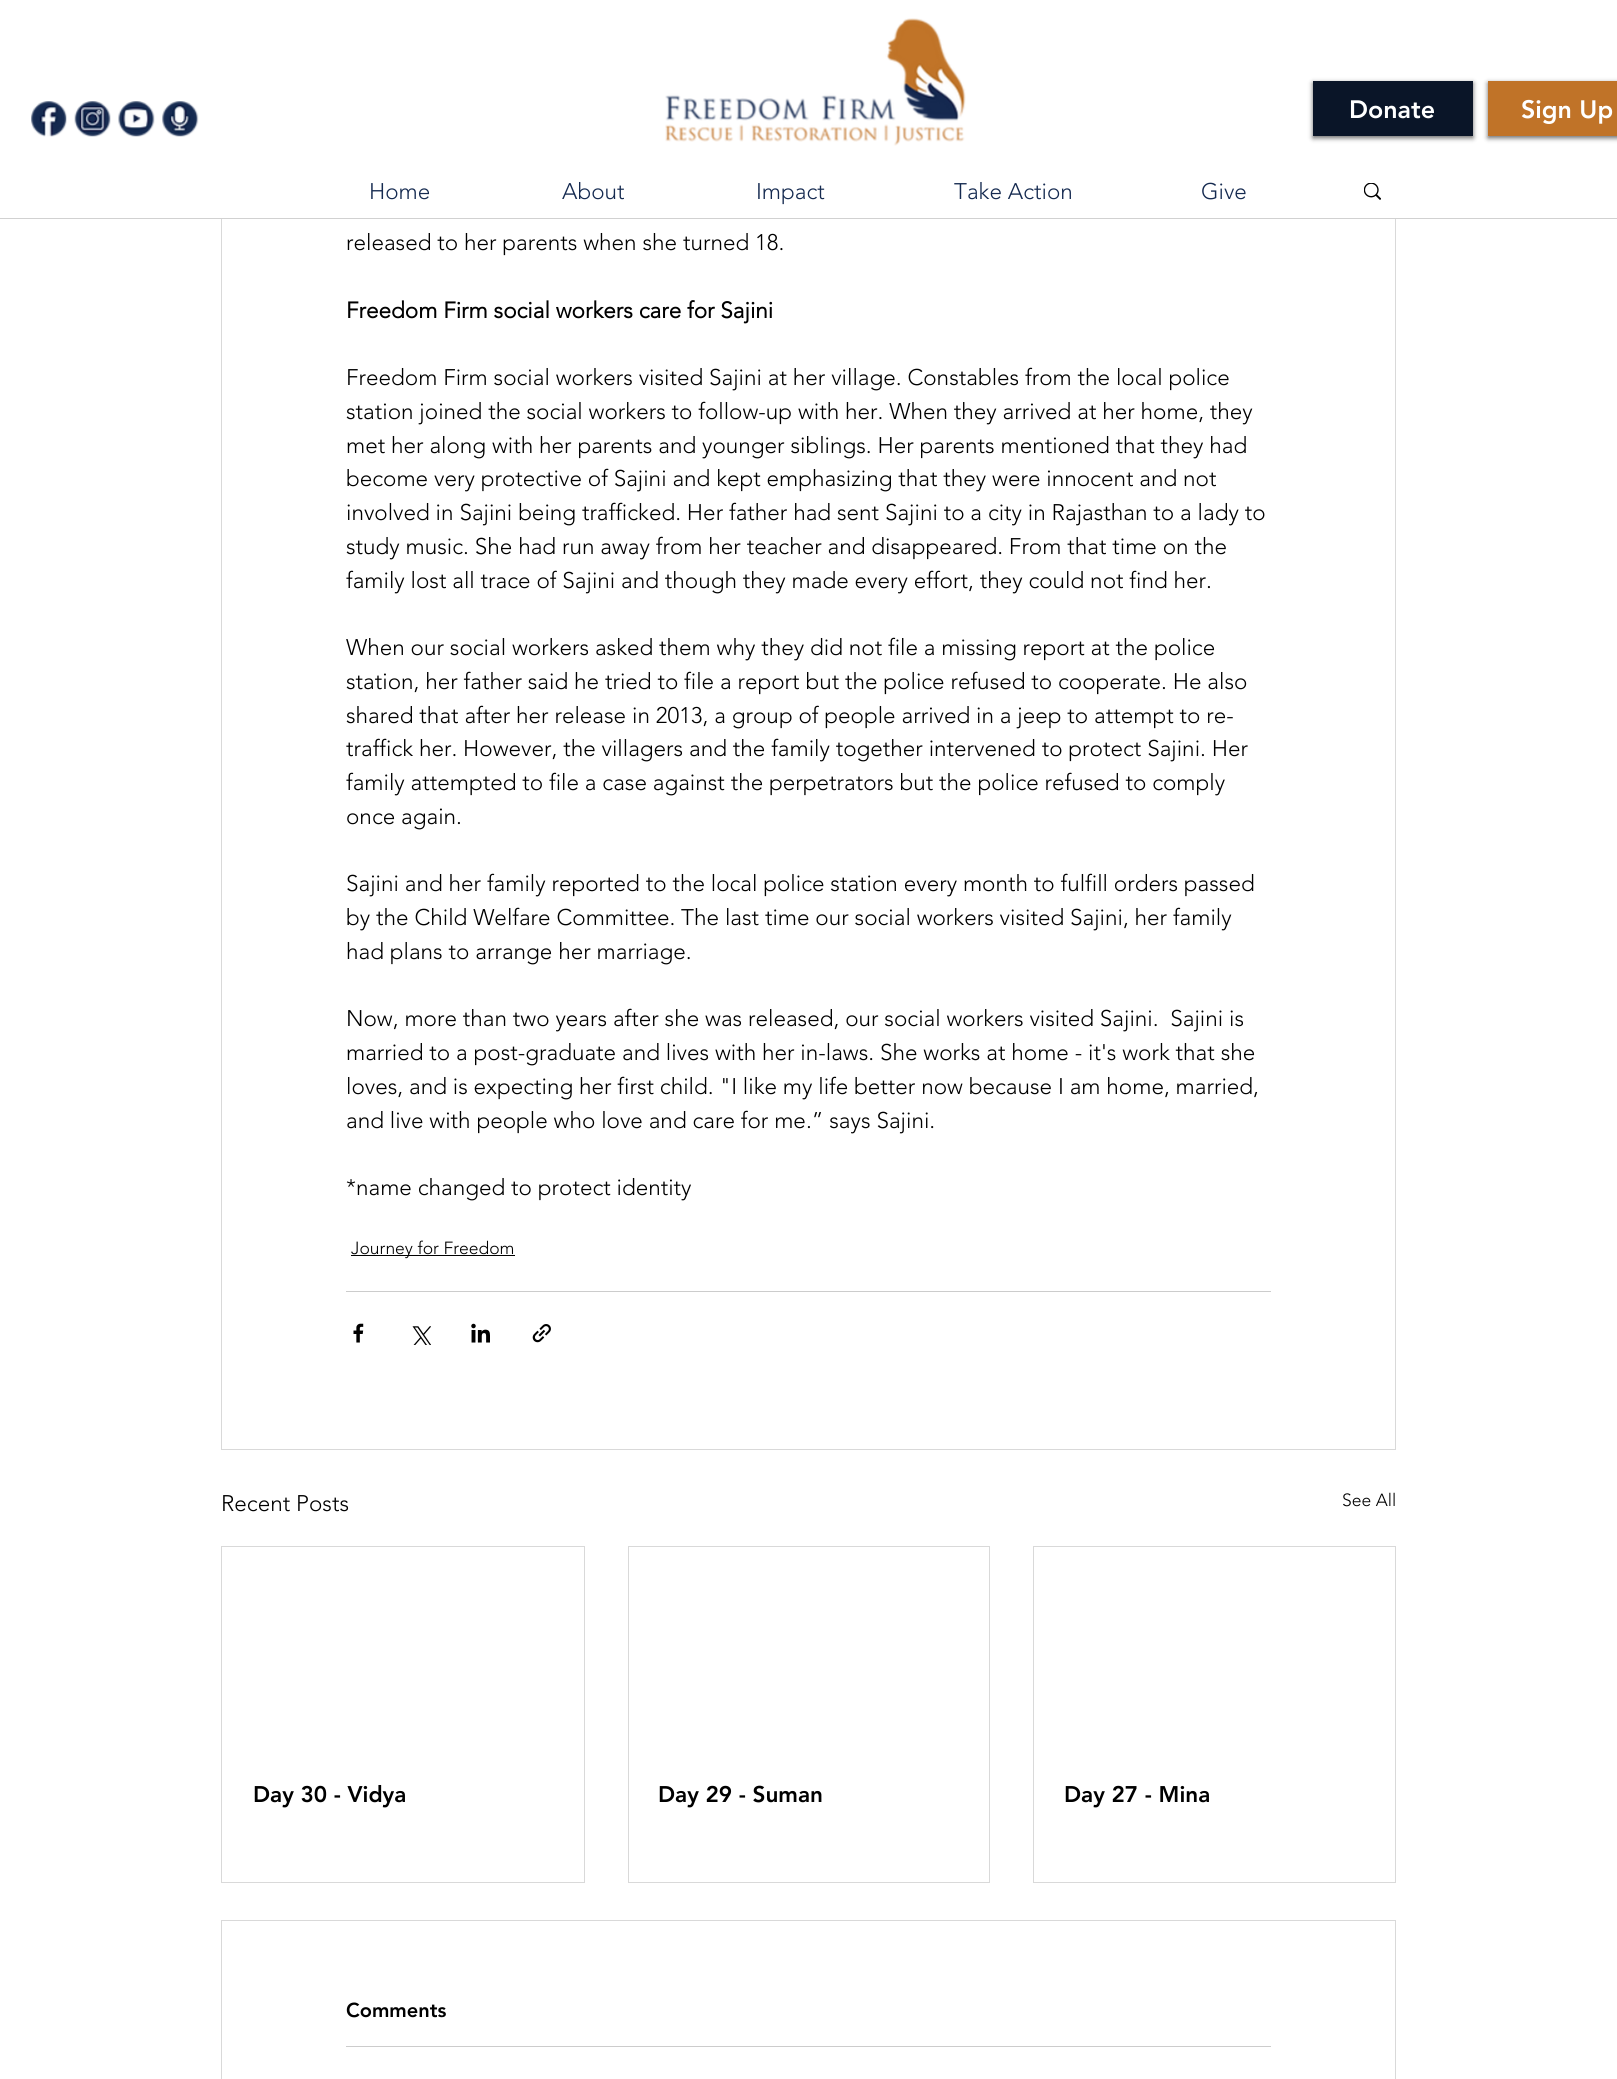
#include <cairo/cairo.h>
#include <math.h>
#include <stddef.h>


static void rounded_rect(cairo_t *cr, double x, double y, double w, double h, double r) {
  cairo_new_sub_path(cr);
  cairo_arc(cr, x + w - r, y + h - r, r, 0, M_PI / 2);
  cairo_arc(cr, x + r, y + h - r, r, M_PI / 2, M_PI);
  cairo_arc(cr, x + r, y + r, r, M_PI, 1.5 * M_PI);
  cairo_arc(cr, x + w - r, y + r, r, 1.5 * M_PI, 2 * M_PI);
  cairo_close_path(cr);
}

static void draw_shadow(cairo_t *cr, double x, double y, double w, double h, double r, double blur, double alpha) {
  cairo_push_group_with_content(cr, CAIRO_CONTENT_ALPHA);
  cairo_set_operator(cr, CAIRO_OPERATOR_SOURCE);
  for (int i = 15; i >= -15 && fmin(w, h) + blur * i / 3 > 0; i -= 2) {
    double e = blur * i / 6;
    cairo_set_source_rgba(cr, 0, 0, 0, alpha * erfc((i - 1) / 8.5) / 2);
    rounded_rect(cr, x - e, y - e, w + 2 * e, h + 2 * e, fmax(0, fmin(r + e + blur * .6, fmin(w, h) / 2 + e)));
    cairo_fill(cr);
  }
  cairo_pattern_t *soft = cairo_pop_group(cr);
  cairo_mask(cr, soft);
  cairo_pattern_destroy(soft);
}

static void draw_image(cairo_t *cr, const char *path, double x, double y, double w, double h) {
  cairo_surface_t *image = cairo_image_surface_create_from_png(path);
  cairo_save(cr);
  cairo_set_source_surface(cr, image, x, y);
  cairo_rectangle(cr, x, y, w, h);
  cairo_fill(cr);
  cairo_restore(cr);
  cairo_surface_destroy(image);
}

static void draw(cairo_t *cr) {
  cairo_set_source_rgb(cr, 1, 1, 1);
  cairo_paint(cr);
  cairo_rectangle(cr, 221.5, -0.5, 1174, 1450);
  cairo_set_source_rgb(cr, 217 / 255.0, 217 / 255.0, 217 / 255.0);
  cairo_set_line_width(cr, 1);
  cairo_stroke(cr);
  cairo_set_source_rgb(cr, 1, 1, 1);
  cairo_rectangle(cr, 221, 0, 1175, 218);
  cairo_fill(cr);
  cairo_set_source_rgb(cr, 209 / 255.0, 209 / 255.0, 209 / 255.0);
  cairo_rectangle(cr, 0, 218, 1617, 1);
  cairo_fill(cr);
  draw_image(cr, "images/1.png", 31, 101, 36, 36);
  draw_image(cr, "images/2.png", 74, 101, 37, 36);
  draw_image(cr, "images/3.png", 118, 101, 37, 36);
  draw_image(cr, "images/4.png", 162, 101, 37, 36);
  draw_image(cr, "images/5.png", 665, 18, 301, 128);
  cairo_set_source_rgb(cr, 0, 0, 0);
  draw_shadow(cr, 1313, 83, 160, 55, 0, 2.5, 0.6);
  cairo_set_source_rgb(cr, 10 / 255.0, 21 / 255.0, 40 / 255.0);
  cairo_rectangle(cr, 1313, 81, 160, 55);
  cairo_fill(cr);
  cairo_set_source_rgb(cr, 0, 0, 0);
  draw_shadow(cr, 1488, 83, 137, 55, 0, 2.5, 0.6);
  cairo_set_source_rgb(cr, 192 / 255.0, 115 / 255.0, 40 / 255.0);
  cairo_rectangle(cr, 1488, 81, 129, 55);
  cairo_fill(cr);
  draw_image(cr, "images/6.png", 1364, 183, 17, 17);
  cairo_set_source_rgb(cr, 0, 0, 0);
  cairo_rectangle(cr, 351, 1255, 164, 1);
  cairo_fill(cr);
  cairo_set_source_rgb(cr, 204 / 255.0, 204 / 255.0, 204 / 255.0);
  cairo_rectangle(cr, 346, 1291, 925, 1);
  cairo_fill(cr);
  draw_image(cr, "images/7.png", 353, 1323, 11, 20);
  draw_image(cr, "images/8.png", 412, 1326, 19, 19);
  draw_image(cr, "images/9.png", 471, 1323, 19, 20);
  draw_image(cr, "images/10.png", 532, 1324, 19, 19);
  cairo_rectangle(cr, 221.5, 1546.5, 363, 336);
  cairo_set_source_rgb(cr, 217 / 255.0, 217 / 255.0, 217 / 255.0);
  cairo_stroke(cr);
  cairo_rectangle(cr, 628.5, 1546.5, 361, 336);
  cairo_stroke(cr);
  cairo_rectangle(cr, 1033.5, 1546.5, 362, 336);
  cairo_stroke(cr);
  cairo_rectangle(cr, 221.5, 1920.5, 1174, 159);
  cairo_stroke(cr);
  cairo_set_source_rgb(cr, 204 / 255.0, 204 / 255.0, 204 / 255.0);
  cairo_rectangle(cr, 346, 2046, 925, 1);
  cairo_fill(cr);
  cairo_select_font_face(cr, "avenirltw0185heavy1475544 Black", CAIRO_FONT_SLANT_NORMAL, CAIRO_FONT_WEIGHT_NORMAL);
  cairo_set_font_size(cr, 25);
  cairo_set_source_rgb(cr, 1, 1, 1);
  cairo_move_to(cr, 1349, 118);
  cairo_show_text(cr, "Donate");
  cairo_move_to(cr, 1521, 118);
  cairo_show_text(cr, "Sign Up");
  cairo_select_font_face(cr, "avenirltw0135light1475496 Light", CAIRO_FONT_SLANT_NORMAL, CAIRO_FONT_WEIGHT_NORMAL);
  cairo_set_font_size(cr, 22.5);
  cairo_set_source_rgb(cr, 21 / 255.0, 42 / 255.0, 80 / 255.0);
  cairo_move_to(cr, 369, 199);
  cairo_show_text(cr, "Home");
  cairo_move_to(cr, 562, 199);
  cairo_show_text(cr, "About");
  cairo_move_to(cr, 756, 199);
  cairo_show_text(cr, "Impact");
  cairo_move_to(cr, 954, 199);
  cairo_show_text(cr, "Take Action");
  cairo_move_to(cr, 1201, 199);
  cairo_show_text(cr, "Give");
  cairo_set_source_rgb(cr, 0, 0, 0);
  cairo_move_to(cr, 346, 250);
  cairo_show_text(cr, "released to her parents when she turned 18.");
  cairo_select_font_face(cr, "avenirltw0135light1475496", CAIRO_FONT_SLANT_NORMAL, CAIRO_FONT_WEIGHT_BOLD);
  cairo_move_to(cr, 346, 318);
  cairo_show_text(cr, "Freedom Firm social workers care for Sajini");
  cairo_select_font_face(cr, "avenirltw0135light1475496 Light", CAIRO_FONT_SLANT_NORMAL, CAIRO_FONT_WEIGHT_NORMAL);
  cairo_move_to(cr, 346, 385);
  cairo_show_text(cr, "Freedom Firm social workers visited Sajini at her village. Constables from the local police");
  cairo_move_to(cr, 346, 419);
  cairo_show_text(cr, "station joined the social workers to follow-up with her. When they arrived at her home, they");
  cairo_move_to(cr, 346, 453);
  cairo_show_text(cr, "met her along with her parents and younger siblings. Her parents mentioned that they had");
  cairo_move_to(cr, 346, 486);
  cairo_show_text(cr, "become very protective of Sajini and kept emphasizing that they were innocent and not");
  cairo_move_to(cr, 346, 520);
  cairo_show_text(cr, "involved in Sajini being trafficked. Her father had sent Sajini to a city in Rajasthan to a lady to");
  cairo_move_to(cr, 346, 554);
  cairo_show_text(cr, "study music. She had run away from her teacher and disappeared. From that time on the");
  cairo_move_to(cr, 346, 588);
  cairo_show_text(cr, "family lost all trace of Sajini and though they made every effort, they could not find her.");
  cairo_move_to(cr, 346, 655);
  cairo_show_text(cr, "When our social workers asked them why they did not file a missing report at the police");
  cairo_move_to(cr, 346, 689);
  cairo_show_text(cr, "station, her father said he tried to file a report but the police refused to cooperate. He also");
  cairo_move_to(cr, 346, 723);
  cairo_show_text(cr, "shared that after her release in 2013, a group of people arrived in a jeep to attempt to re-");
  cairo_move_to(cr, 346, 756);
  cairo_show_text(cr, "traffick her. However, the villagers and the family together intervened to protect Sajini. Her");
  cairo_move_to(cr, 346, 790);
  cairo_show_text(cr, "family attempted to file a case against the perpetrators but the police refused to comply");
  cairo_move_to(cr, 346, 824);
  cairo_show_text(cr, "once again.");
  cairo_move_to(cr, 346, 891);
  cairo_show_text(cr, "Sajini and her family reported to the local police station every month to fulfill orders passed");
  cairo_move_to(cr, 346, 925);
  cairo_show_text(cr, "by the Child Welfare Committee. The last time our social workers visited Sajini, her family");
  cairo_move_to(cr, 346, 959);
  cairo_show_text(cr, "had plans to arrange her marriage.");
  cairo_move_to(cr, 346, 1026);
  cairo_show_text(cr, "Now, more than two years after she was released, our social workers visited Sajini.  Sajini is");
  cairo_move_to(cr, 346, 1060);
  cairo_show_text(cr, "married to a post-graduate and lives with her in-laws. She works at home - it's work that she");
  cairo_move_to(cr, 346, 1094);
  cairo_show_text(cr, "loves, and is expecting her first child. \"I like my life better now because I am home, married,");
  cairo_move_to(cr, 346, 1128);
  cairo_show_text(cr, "and live with people who love and care for me.” says Sajini.");
  cairo_move_to(cr, 346, 1195);
  cairo_show_text(cr, "*name changed to protect identity");
  cairo_set_font_size(cr, 17.5);
  cairo_move_to(cr, 351, 1254);
  cairo_show_text(cr, "Journey for Freedom");
  cairo_set_font_size(cr, 22.5);
  cairo_move_to(cr, 221, 1511);
  cairo_show_text(cr, "Recent Posts");
  cairo_set_font_size(cr, 17.5);
  cairo_move_to(cr, 1342, 1506);
  cairo_show_text(cr, "See All");
  cairo_select_font_face(cr, "avenirltw0185heavy1475544 Black", CAIRO_FONT_SLANT_NORMAL, CAIRO_FONT_WEIGHT_NORMAL);
  cairo_set_font_size(cr, 22.5);
  cairo_move_to(cr, 253, 1802);
  cairo_show_text(cr, "Day 30 - Vidya");
  cairo_move_to(cr, 658, 1802);
  cairo_show_text(cr, "Day 29 - Suman");
  cairo_move_to(cr, 1064, 1802);
  cairo_show_text(cr, "Day 27 - Mina");
  cairo_set_font_size(cr, 20);
  cairo_move_to(cr, 346, 2017);
  cairo_show_text(cr, "Comments");
}

int main(void) {
  cairo_surface_t *surface = cairo_image_surface_create(CAIRO_FORMAT_RGB24, 1617, 2079);
  cairo_t *cr = cairo_create(surface);
  cairo_font_options_t *options = cairo_font_options_create();
  cairo_font_options_set_hint_metrics(options, CAIRO_HINT_METRICS_OFF);
  cairo_font_options_set_hint_style(options, CAIRO_HINT_STYLE_NONE);
  cairo_set_font_options(cr, options);
  cairo_set_miter_limit(cr, 4);
  draw(cr);
  cairo_surface_write_to_png(surface, "out.png");
  cairo_font_options_destroy(options);
  cairo_destroy(cr);
  cairo_surface_destroy(surface);
  return 0;
}
